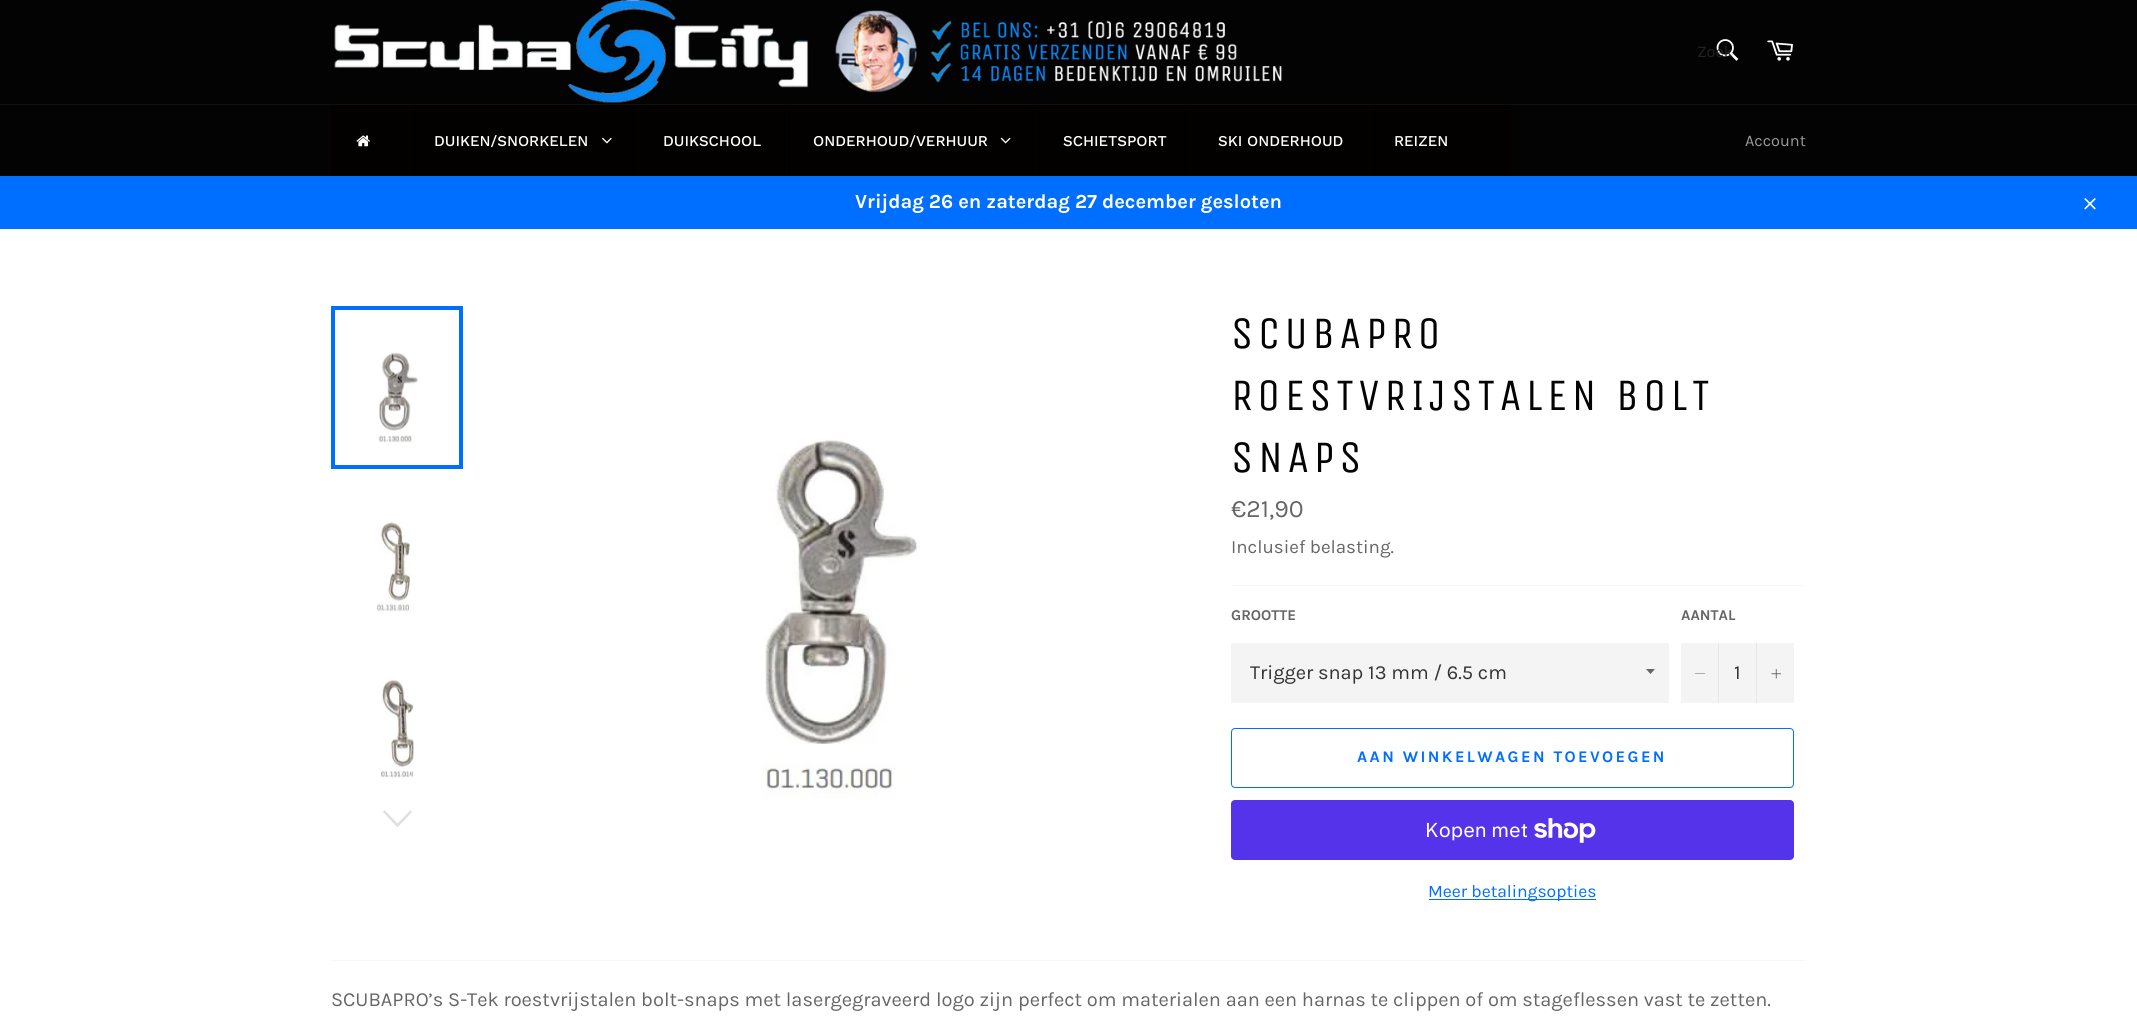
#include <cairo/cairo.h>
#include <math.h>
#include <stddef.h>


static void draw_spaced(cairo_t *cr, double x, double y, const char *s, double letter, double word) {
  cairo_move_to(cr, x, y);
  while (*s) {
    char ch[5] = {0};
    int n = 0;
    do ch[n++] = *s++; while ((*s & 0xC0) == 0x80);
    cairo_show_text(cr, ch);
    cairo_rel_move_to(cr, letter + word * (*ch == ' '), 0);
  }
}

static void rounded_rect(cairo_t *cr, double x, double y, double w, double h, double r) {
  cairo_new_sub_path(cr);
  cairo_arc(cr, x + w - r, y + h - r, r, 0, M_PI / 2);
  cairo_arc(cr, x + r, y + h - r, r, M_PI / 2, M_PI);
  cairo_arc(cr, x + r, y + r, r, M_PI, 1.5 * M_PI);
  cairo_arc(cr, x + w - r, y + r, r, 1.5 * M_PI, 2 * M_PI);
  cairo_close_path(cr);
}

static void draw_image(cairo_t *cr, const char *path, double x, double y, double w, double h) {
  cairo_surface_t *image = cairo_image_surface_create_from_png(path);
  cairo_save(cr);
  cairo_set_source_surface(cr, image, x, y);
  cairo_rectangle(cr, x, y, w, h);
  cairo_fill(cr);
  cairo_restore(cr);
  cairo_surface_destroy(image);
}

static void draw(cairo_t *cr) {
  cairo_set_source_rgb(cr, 3 / 255.0, 3 / 255.0, 3 / 255.0);
  cairo_paint(cr);
  draw_image(cr, "images/1.png", 334, 0, 948, 103);
  draw_image(cr, "images/2.png", 1716, 39, 23, 22);
  draw_image(cr, "images/3.png", 1767, 40, 26, 21);
  cairo_set_source_rgb(cr, 16 / 255.0, 16 / 255.0, 16 / 255.0);
  cairo_rectangle(cr, 0, 104, 2137, 1);
  cairo_fill(cr);
  cairo_set_source_rgb(cr, 3 / 255.0, 0, 0);
  cairo_rectangle(cr, 331, 105, 1180, 71);
  cairo_fill(cr);
  draw_image(cr, "images/4.png", 356, 135, 14, 12);
  cairo_set_source_rgb(cr, 3 / 255.0, 3 / 255.0, 3 / 255.0);
  cairo_rectangle(cr, 408, 105, 1, 71);
  cairo_fill(cr);
  draw_image(cr, "images/5.png", 602, 137, 10, 7);
  cairo_rectangle(cr, 638, 105, 1, 71);
  cairo_fill(cr);
  cairo_rectangle(cr, 786, 105, 1, 71);
  cairo_fill(cr);
  draw_image(cr, "images/6.png", 1000, 137, 11, 7);
  cairo_rectangle(cr, 1036, 105, 1, 71);
  cairo_fill(cr);
  cairo_rectangle(cr, 1191, 105, 1, 71);
  cairo_fill(cr);
  cairo_rectangle(cr, 1369, 105, 1, 71);
  cairo_fill(cr);
  cairo_set_source_rgb(cr, 0, 110 / 255.0, 1);
  cairo_rectangle(cr, 0, 176, 2137, 53);
  cairo_fill(cr);
  draw_image(cr, "images/7.png", 2084, 198, 12, 12);
  cairo_set_source_rgb(cr, 1, 1, 1);
  cairo_rectangle(cr, 0, 229, 2137, 805);
  cairo_fill(cr);
  draw_image(cr, "images/8.png", 379, 352, 39, 91);
  cairo_rectangle(cr, 333, 308, 128, 159);
  cairo_set_source_rgb(cr, 0, 110 / 255.0, 1);
  cairo_set_line_width(cr, 4);
  cairo_stroke(cr);
  draw_image(cr, "images/9.png", 377, 521, 34, 92);
  draw_image(cr, "images/10.png", 381, 680, 33, 98);
  cairo_set_source_rgb(cr, 224 / 255.0, 224 / 255.0, 224 / 255.0);
  cairo_new_path(cr);
  cairo_move_to(cr, 410.5, 810);
  cairo_line_to(cr, 412, 812);
  cairo_line_to(cr, 397.5, 827.5);
  cairo_line_to(cr, 383, 812);
  cairo_line_to(cr, 384.5, 810);
  cairo_line_to(cr, 397.5, 823.5);
  cairo_close_path(cr);
  cairo_fill(cr);
  draw_image(cr, "images/11.png", 763, 439, 157, 360);
  cairo_set_source_rgb(cr, 247 / 255.0, 247 / 255.0, 247 / 255.0);
  cairo_rectangle(cr, 1231, 585, 575, 1);
  cairo_fill(cr);
  cairo_set_source_rgb(cr, 244 / 255.0, 244 / 255.0, 244 / 255.0);
  cairo_rectangle(cr, 1231, 643, 438, 60);
  cairo_fill(cr);
  cairo_set_source_rgb(cr, 102 / 255.0, 102 / 255.0, 102 / 255.0);
  cairo_new_path(cr);
  cairo_move_to(cr, 1646, 669);
  cairo_line_to(cr, 1650.5, 674);
  cairo_line_to(cr, 1655, 669);
  cairo_close_path(cr);
  cairo_fill(cr);
  cairo_set_source_rgb(cr, 244 / 255.0, 244 / 255.0, 244 / 255.0);
  cairo_rectangle(cr, 1681, 643, 113, 60);
  cairo_fill(cr);
  cairo_set_source_rgb(cr, 231 / 255.0, 231 / 255.0, 231 / 255.0);
  cairo_rectangle(cr, 1718, 643, 1, 60);
  cairo_fill(cr);
  cairo_set_source_rgb(cr, 102 / 255.0, 102 / 255.0, 102 / 255.0);
  cairo_set_fill_rule(cr, CAIRO_FILL_RULE_EVEN_ODD);
  cairo_new_path(cr);
  cairo_move_to(cr, 1705, 673.5);
  cairo_line_to(cr, 1705, 674);
  cairo_line_to(cr, 1695, 674);
  cairo_line_to(cr, 1695, 673.5);
  cairo_close_path(cr);
  cairo_fill(cr);
  cairo_set_source_rgb(cr, 231 / 255.0, 231 / 255.0, 231 / 255.0);
  cairo_rectangle(cr, 1756, 643, 1, 60);
  cairo_fill(cr);
  draw_image(cr, "images/12.png", 1771, 669, 10, 10);
  rounded_rect(cr, 1231.5, 728.5, 562, 59, 3.5);
  cairo_set_source_rgb(cr, 0, 110 / 255.0, 1);
  cairo_set_line_width(cr, 1);
  cairo_stroke(cr);
  cairo_set_source_rgb(cr, 84 / 255.0, 51 / 255.0, 235 / 255.0);
  rounded_rect(cr, 1231, 800, 563, 60, 4);
  cairo_fill(cr);
  draw_image(cr, "images/13.png", 1534, 818, 62, 25);
  cairo_set_source_rgb(cr, 0, 110 / 255.0, 1);
  cairo_rectangle(cr, 1429, 899, 167, 1);
  cairo_fill(cr);
  cairo_set_source_rgb(cr, 247 / 255.0, 247 / 255.0, 247 / 255.0);
  cairo_rectangle(cr, 331, 960, 1475, 1);
  cairo_fill(cr);
  cairo_select_font_face(cr, "Karla", CAIRO_FONT_SLANT_NORMAL, CAIRO_FONT_WEIGHT_NORMAL);
  cairo_set_font_size(cr, 16.25);
  cairo_set_source_rgb(cr, 35 / 255.0, 35 / 255.0, 35 / 255.0);
  cairo_move_to(cr, 1697, 57);
  cairo_show_text(cr, "Zoek");
  cairo_select_font_face(cr, "Work Sans Medium", CAIRO_FONT_SLANT_NORMAL, CAIRO_FONT_WEIGHT_NORMAL);
  cairo_set_font_size(cr, 15);
  cairo_set_source_rgb(cr, 1, 1, 1);
  cairo_move_to(cr, 434, 146);
  cairo_show_text(cr, "DUIKEN/SNORKELEN");
  cairo_move_to(cr, 663, 146);
  cairo_show_text(cr, "DUIKSCHOOL");
  cairo_move_to(cr, 813, 146);
  cairo_show_text(cr, "ONDERHOUD/VERHUUR");
  cairo_move_to(cr, 1063, 146);
  cairo_show_text(cr, "SCHIETSPORT");
  cairo_move_to(cr, 1218, 146);
  cairo_show_text(cr, "SKI ONDERHOUD");
  cairo_move_to(cr, 1394, 146);
  cairo_show_text(cr, "REIZEN");
  cairo_select_font_face(cr, "Karla", CAIRO_FONT_SLANT_NORMAL, CAIRO_FONT_WEIGHT_NORMAL);
  cairo_set_font_size(cr, 16.25);
  cairo_set_source_rgb(cr, 154 / 255.0, 154 / 255.0, 154 / 255.0);
  cairo_move_to(cr, 1745, 146);
  cairo_show_text(cr, "Account");
  cairo_select_font_face(cr, "Karla", CAIRO_FONT_SLANT_NORMAL, CAIRO_FONT_WEIGHT_BOLD);
  cairo_set_font_size(cr, 20);
  cairo_set_source_rgb(cr, 1, 1, 1);
  cairo_move_to(cr, 855, 208);
  cairo_show_text(cr, "Vrijdag 26 en zaterdag 27 december gesloten");
  cairo_select_font_face(cr, "Unica One", CAIRO_FONT_SLANT_NORMAL, CAIRO_FONT_WEIGHT_NORMAL);
  cairo_set_font_size(cr, 45);
  cairo_set_source_rgb(cr, 3 / 255.0, 3 / 255.0, 3 / 255.0);
  draw_spaced(cr, 1231, 348, "SCUBAPRO", 4.5, 0);
  draw_spaced(cr, 1231, 410, "ROESTVRIJSTALEN BOLT", 4.5, 0);
  draw_spaced(cr, 1231, 472, "SNAPS", 4.5, 0);
  cairo_select_font_face(cr, "Karla", CAIRO_FONT_SLANT_NORMAL, CAIRO_FONT_WEIGHT_NORMAL);
  cairo_set_font_size(cr, 25);
  cairo_set_source_rgb(cr, 102 / 255.0, 102 / 255.0, 102 / 255.0);
  cairo_move_to(cr, 1231, 517);
  cairo_show_text(cr, "€21,90");
  cairo_set_font_size(cr, 18.75);
  cairo_move_to(cr, 1231, 553);
  cairo_show_text(cr, "Inclusief belasting.");
  cairo_select_font_face(cr, "Karla", CAIRO_FONT_SLANT_NORMAL, CAIRO_FONT_WEIGHT_BOLD);
  cairo_set_font_size(cr, 15);
  cairo_move_to(cr, 1231, 620);
  cairo_show_text(cr, "GROOTTE");
  cairo_select_font_face(cr, "Karla", CAIRO_FONT_SLANT_NORMAL, CAIRO_FONT_WEIGHT_NORMAL);
  cairo_set_font_size(cr, 20);
  cairo_set_source_rgb(cr, 51 / 255.0, 51 / 255.0, 51 / 255.0);
  cairo_move_to(cr, 1250, 679);
  cairo_show_text(cr, "Trigger snap 13 mm / 6.5 cm");
  cairo_select_font_face(cr, "Karla", CAIRO_FONT_SLANT_NORMAL, CAIRO_FONT_WEIGHT_BOLD);
  cairo_set_font_size(cr, 15);
  cairo_set_source_rgb(cr, 102 / 255.0, 102 / 255.0, 102 / 255.0);
  cairo_move_to(cr, 1681, 620);
  cairo_show_text(cr, "AANTAL");
  cairo_select_font_face(cr, "Karla", CAIRO_FONT_SLANT_NORMAL, CAIRO_FONT_WEIGHT_NORMAL);
  cairo_set_font_size(cr, 20);
  cairo_set_source_rgb(cr, 51 / 255.0, 51 / 255.0, 51 / 255.0);
  cairo_move_to(cr, 1734, 679);
  cairo_show_text(cr, "1");
  cairo_select_font_face(cr, "Karla", CAIRO_FONT_SLANT_NORMAL, CAIRO_FONT_WEIGHT_BOLD);
  cairo_set_font_size(cr, 16.25);
  cairo_set_source_rgb(cr, 0, 110 / 255.0, 1);
  draw_spaced(cr, 1357, 762, "AAN WINKELWAGEN TOEVOEGEN", 2.4, 0);
  cairo_select_font_face(cr, "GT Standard", CAIRO_FONT_SLANT_NORMAL, CAIRO_FONT_WEIGHT_NORMAL);
  cairo_set_font_size(cr, 20);
  cairo_set_source_rgb(cr, 1, 1, 1);
  cairo_move_to(cr, 1425, 837);
  cairo_show_text(cr, "Kopen met");
  cairo_select_font_face(cr, "Karla", CAIRO_FONT_SLANT_NORMAL, CAIRO_FONT_WEIGHT_NORMAL);
  cairo_set_font_size(cr, 17.5);
  cairo_set_source_rgb(cr, 0, 110 / 255.0, 1);
  cairo_move_to(cr, 1428, 897);
  cairo_show_text(cr, "Meer betalingsopties");
  cairo_set_font_size(cr, 20);
  cairo_set_source_rgb(cr, 102 / 255.0, 102 / 255.0, 102 / 255.0);
  cairo_move_to(cr, 331, 1006);
  cairo_show_text(cr, "SCUBAPRO’s S-Tek roestvrijstalen bolt-snaps met lasergegraveerd logo zijn perfect om materialen aan een harnas te clippen of om stageflessen vast te zetten.");
}

int main(void) {
  cairo_surface_t *surface = cairo_image_surface_create(CAIRO_FORMAT_RGB24, 2137, 1034);
  cairo_t *cr = cairo_create(surface);
  cairo_font_options_t *options = cairo_font_options_create();
  cairo_font_options_set_hint_metrics(options, CAIRO_HINT_METRICS_OFF);
  cairo_font_options_set_hint_style(options, CAIRO_HINT_STYLE_NONE);
  cairo_set_font_options(cr, options);
  cairo_set_miter_limit(cr, 4);
  draw(cr);
  cairo_surface_write_to_png(surface, "out.png");
  cairo_font_options_destroy(options);
  cairo_destroy(cr);
  cairo_surface_destroy(surface);
  return 0;
}
